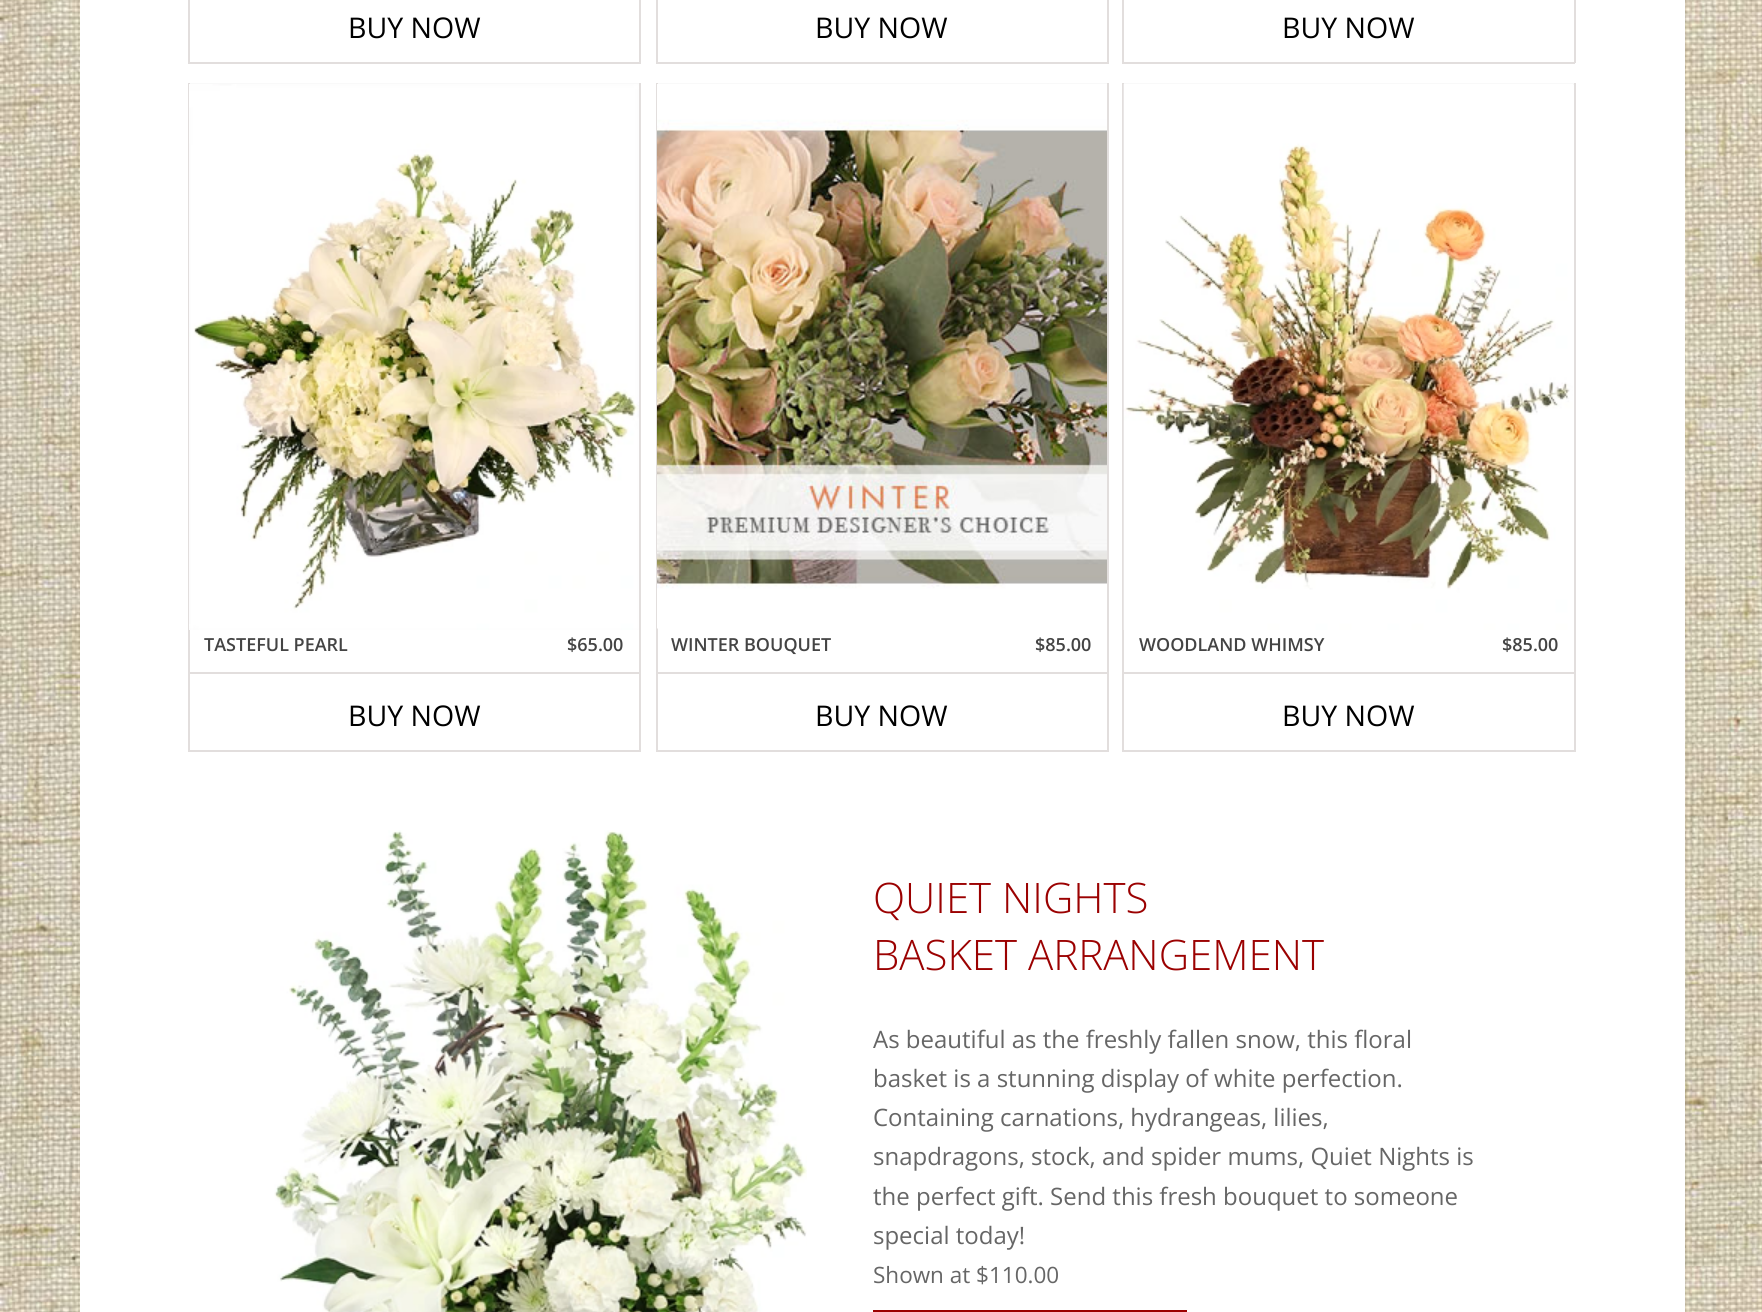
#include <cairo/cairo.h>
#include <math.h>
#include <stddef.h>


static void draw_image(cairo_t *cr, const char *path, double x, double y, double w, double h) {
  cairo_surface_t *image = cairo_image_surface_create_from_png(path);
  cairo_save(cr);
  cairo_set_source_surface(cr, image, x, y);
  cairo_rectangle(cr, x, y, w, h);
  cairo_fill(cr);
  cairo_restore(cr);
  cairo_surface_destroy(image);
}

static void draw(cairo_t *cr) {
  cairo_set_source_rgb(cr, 1, 1, 1);
  cairo_paint(cr);
  draw_image(cr, "images/1.png", 0, 0, 1762, 1312);
  cairo_set_source_rgb(cr, 1, 1, 1);
  cairo_rectangle(cr, 80, 0, 1605, 1312);
  cairo_fill(cr);
  cairo_set_source_rgb(cr, 226 / 255.0, 222 / 255.0, 221 / 255.0);
  cairo_rectangle(cr, 639, 0, 2, 63);
  cairo_fill(cr);
  cairo_rectangle(cr, 188, 62, 453, 2);
  cairo_fill(cr);
  cairo_rectangle(cr, 188, 0, 2, 63);
  cairo_fill(cr);
  cairo_rectangle(cr, 1107, 0, 2, 63);
  cairo_fill(cr);
  cairo_rectangle(cr, 656, 62, 453, 2);
  cairo_fill(cr);
  cairo_rectangle(cr, 656, 0, 2, 63);
  cairo_fill(cr);
  cairo_rectangle(cr, 1574, 0, 2, 63);
  cairo_fill(cr);
  cairo_rectangle(cr, 1122, 62, 453, 2);
  cairo_fill(cr);
  cairo_rectangle(cr, 1122, 0, 2, 63);
  cairo_fill(cr);
  cairo_set_source_rgb(cr, 249 / 255.0, 249 / 255.0, 249 / 255.0);
  cairo_rectangle(cr, 188, 83, 453, 1);
  cairo_fill(cr);
  cairo_set_source_rgb(cr, 226 / 255.0, 222 / 255.0, 221 / 255.0);
  cairo_rectangle(cr, 639, 83, 2, 669);
  cairo_fill(cr);
  cairo_rectangle(cr, 188, 750, 453, 2);
  cairo_fill(cr);
  cairo_rectangle(cr, 188, 83, 2, 669);
  cairo_fill(cr);
  draw_image(cr, "images/2.png", 189, 84, 450, 546);
  cairo_rectangle(cr, 189, 672, 450, 2);
  cairo_fill(cr);
  cairo_set_source_rgb(cr, 249 / 255.0, 249 / 255.0, 249 / 255.0);
  cairo_rectangle(cr, 656, 83, 453, 1);
  cairo_fill(cr);
  cairo_set_source_rgb(cr, 226 / 255.0, 222 / 255.0, 221 / 255.0);
  cairo_rectangle(cr, 1107, 83, 2, 669);
  cairo_fill(cr);
  cairo_rectangle(cr, 656, 750, 453, 2);
  cairo_fill(cr);
  cairo_rectangle(cr, 656, 83, 2, 669);
  cairo_fill(cr);
  draw_image(cr, "images/3.png", 657, 84, 450, 545);
  cairo_rectangle(cr, 657, 672, 450, 2);
  cairo_fill(cr);
  cairo_set_source_rgb(cr, 249 / 255.0, 249 / 255.0, 249 / 255.0);
  cairo_rectangle(cr, 1122, 83, 453, 2);
  cairo_fill(cr);
  cairo_set_source_rgb(cr, 226 / 255.0, 222 / 255.0, 221 / 255.0);
  cairo_rectangle(cr, 1574, 83, 2, 669);
  cairo_fill(cr);
  cairo_rectangle(cr, 1122, 750, 453, 2);
  cairo_fill(cr);
  cairo_rectangle(cr, 1122, 83, 2, 669);
  cairo_fill(cr);
  draw_image(cr, "images/4.png", 1123, 84, 450, 546);
  cairo_rectangle(cr, 1124, 672, 450, 2);
  cairo_fill(cr);
  draw_image(cr, "images/5.png", 274, 830, 533, 482);
  cairo_rectangle(cr, 874.5, 1311.5, 311, 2);
  cairo_set_source_rgb(cr, 155 / 255.0, 1 / 255.0, 1 / 255.0);
  cairo_set_line_width(cr, 3);
  cairo_stroke(cr);
  cairo_select_font_face(cr, "Open Sans", CAIRO_FONT_SLANT_NORMAL, CAIRO_FONT_WEIGHT_NORMAL);
  cairo_set_font_size(cr, 28.5);
  cairo_set_source_rgb(cr, 0, 0, 0);
  cairo_move_to(cr, 348, 38);
  cairo_show_text(cr, "BUY NOW");
  cairo_move_to(cr, 815, 38);
  cairo_show_text(cr, "BUY NOW");
  cairo_move_to(cr, 1282, 38);
  cairo_show_text(cr, "BUY NOW");
  cairo_select_font_face(cr, "Open Sans SemiBold", CAIRO_FONT_SLANT_NORMAL, CAIRO_FONT_WEIGHT_NORMAL);
  cairo_set_font_size(cr, 18);
  cairo_set_source_rgb(cr, 68 / 255.0, 68 / 255.0, 68 / 255.0);
  cairo_move_to(cr, 204, 651);
  cairo_show_text(cr, "TASTEFUL PEARL");
  cairo_move_to(cr, 567, 651);
  cairo_show_text(cr, "$65.00");
  cairo_select_font_face(cr, "Open Sans", CAIRO_FONT_SLANT_NORMAL, CAIRO_FONT_WEIGHT_NORMAL);
  cairo_set_font_size(cr, 28.5);
  cairo_set_source_rgb(cr, 0, 0, 0);
  cairo_move_to(cr, 348, 726);
  cairo_show_text(cr, "BUY NOW");
  cairo_select_font_face(cr, "Open Sans SemiBold", CAIRO_FONT_SLANT_NORMAL, CAIRO_FONT_WEIGHT_NORMAL);
  cairo_set_font_size(cr, 18);
  cairo_set_source_rgb(cr, 68 / 255.0, 68 / 255.0, 68 / 255.0);
  cairo_move_to(cr, 671, 651);
  cairo_show_text(cr, "WINTER BOUQUET");
  cairo_move_to(cr, 1035, 651);
  cairo_show_text(cr, "$85.00");
  cairo_select_font_face(cr, "Open Sans", CAIRO_FONT_SLANT_NORMAL, CAIRO_FONT_WEIGHT_NORMAL);
  cairo_set_font_size(cr, 28.5);
  cairo_set_source_rgb(cr, 0, 0, 0);
  cairo_move_to(cr, 815, 726);
  cairo_show_text(cr, "BUY NOW");
  cairo_select_font_face(cr, "Open Sans SemiBold", CAIRO_FONT_SLANT_NORMAL, CAIRO_FONT_WEIGHT_NORMAL);
  cairo_set_font_size(cr, 18);
  cairo_set_source_rgb(cr, 68 / 255.0, 68 / 255.0, 68 / 255.0);
  cairo_move_to(cr, 1139, 651);
  cairo_show_text(cr, "WOODLAND WHIMSY");
  cairo_move_to(cr, 1502, 651);
  cairo_show_text(cr, "$85.00");
  cairo_select_font_face(cr, "Open Sans", CAIRO_FONT_SLANT_NORMAL, CAIRO_FONT_WEIGHT_NORMAL);
  cairo_set_font_size(cr, 28.5);
  cairo_set_source_rgb(cr, 0, 0, 0);
  cairo_move_to(cr, 1282, 726);
  cairo_show_text(cr, "BUY NOW");
  cairo_select_font_face(cr, "Open Sans Light", CAIRO_FONT_SLANT_NORMAL, CAIRO_FONT_WEIGHT_NORMAL);
  cairo_set_font_size(cr, 42);
  cairo_set_source_rgb(cr, 155 / 255.0, 1 / 255.0, 1 / 255.0);
  cairo_move_to(cr, 873, 913);
  cairo_show_text(cr, "QUIET NIGHTS");
  cairo_move_to(cr, 873, 970);
  cairo_show_text(cr, "BASKET ARRANGEMENT");
  cairo_select_font_face(cr, "Open Sans", CAIRO_FONT_SLANT_NORMAL, CAIRO_FONT_WEIGHT_NORMAL);
  cairo_set_font_size(cr, 24);
  cairo_set_source_rgb(cr, 102 / 255.0, 102 / 255.0, 102 / 255.0);
  cairo_move_to(cr, 873, 1048);
  cairo_show_text(cr, "As beautiful as the freshly fallen snow, this floral");
  cairo_move_to(cr, 873, 1087);
  cairo_show_text(cr, "basket is a stunning display of white perfection.");
  cairo_move_to(cr, 873, 1126);
  cairo_show_text(cr, "Containing carnations, hydrangeas, lilies,");
  cairo_move_to(cr, 873, 1165);
  cairo_show_text(cr, "snapdragons, stock, and spider mums, Quiet Nights is");
  cairo_move_to(cr, 873, 1205);
  cairo_show_text(cr, "the perfect gift. Send this fresh bouquet to someone");
  cairo_move_to(cr, 873, 1244);
  cairo_show_text(cr, "special today!");
  cairo_set_font_size(cr, 22.5);
  cairo_move_to(cr, 873, 1283);
  cairo_show_text(cr, "Shown at $110.00");
}

int main(void) {
  cairo_surface_t *surface = cairo_image_surface_create(CAIRO_FORMAT_RGB24, 1762, 1312);
  cairo_t *cr = cairo_create(surface);
  cairo_font_options_t *options = cairo_font_options_create();
  cairo_font_options_set_hint_metrics(options, CAIRO_HINT_METRICS_OFF);
  cairo_font_options_set_hint_style(options, CAIRO_HINT_STYLE_NONE);
  cairo_set_font_options(cr, options);
  cairo_set_miter_limit(cr, 4);
  draw(cr);
  cairo_surface_write_to_png(surface, "out.png");
  cairo_font_options_destroy(options);
  cairo_destroy(cr);
  cairo_surface_destroy(surface);
  return 0;
}
